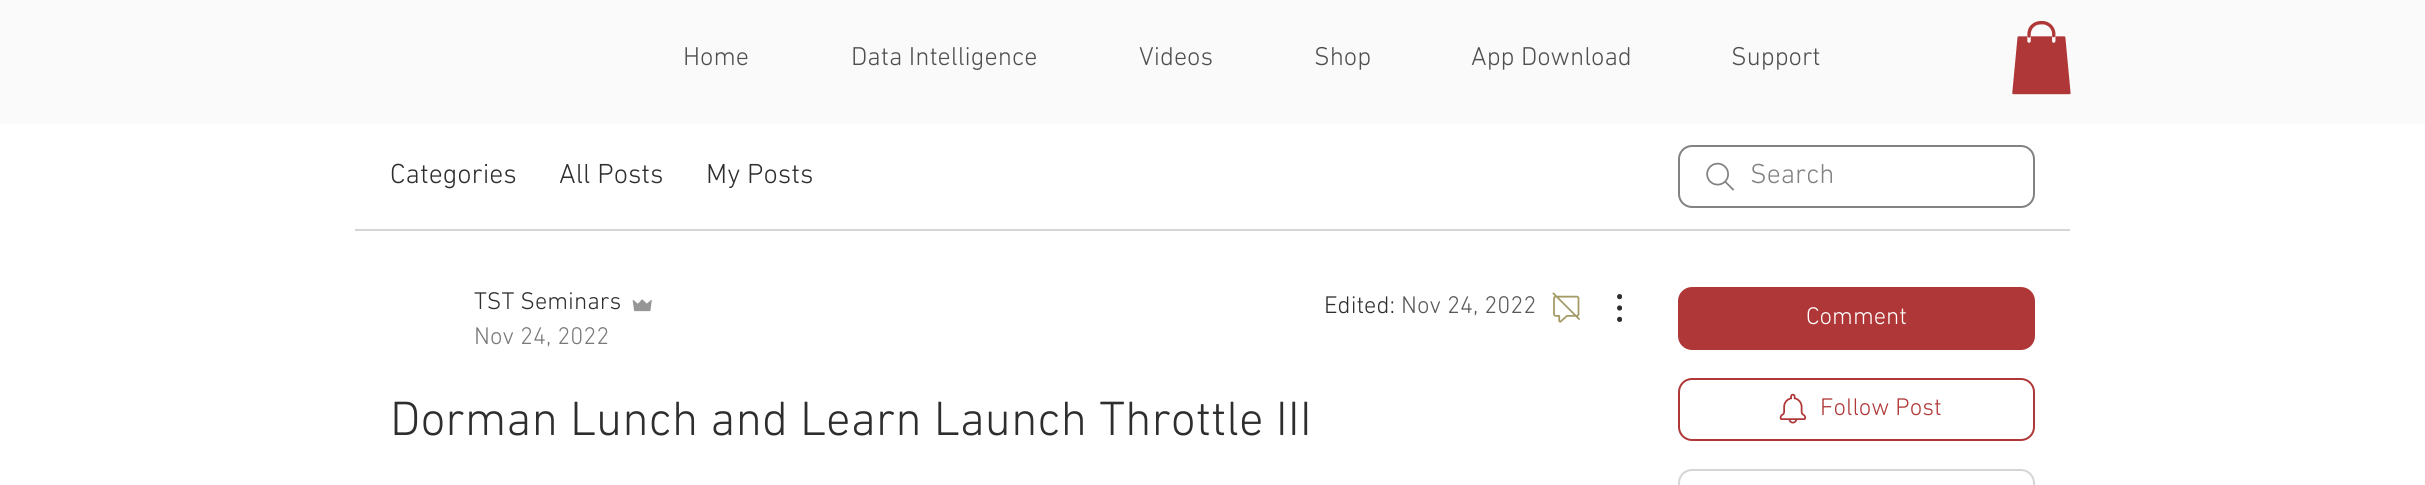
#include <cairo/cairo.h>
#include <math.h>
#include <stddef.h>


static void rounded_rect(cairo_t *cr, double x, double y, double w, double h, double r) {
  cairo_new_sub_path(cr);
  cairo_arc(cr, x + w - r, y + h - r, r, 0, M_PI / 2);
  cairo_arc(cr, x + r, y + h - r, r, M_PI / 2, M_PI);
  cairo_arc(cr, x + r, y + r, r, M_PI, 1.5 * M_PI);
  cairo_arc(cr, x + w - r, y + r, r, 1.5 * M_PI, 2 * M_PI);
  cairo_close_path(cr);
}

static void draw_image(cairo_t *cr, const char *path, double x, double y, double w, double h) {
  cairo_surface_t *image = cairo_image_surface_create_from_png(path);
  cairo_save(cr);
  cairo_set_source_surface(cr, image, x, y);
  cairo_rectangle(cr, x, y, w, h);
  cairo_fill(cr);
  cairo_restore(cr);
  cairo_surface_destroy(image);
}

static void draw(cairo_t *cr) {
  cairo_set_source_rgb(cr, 1, 1, 1);
  cairo_paint(cr);
  cairo_set_source_rgb(cr, 250 / 255.0, 250 / 255.0, 250 / 255.0);
  cairo_rectangle(cr, 0, 0, 2425, 124);
  cairo_fill(cr);
  draw_image(cr, "images/1.png", 2012, 21, 59, 74);
  cairo_set_source_rgb(cr, 213 / 255.0, 213 / 255.0, 213 / 255.0);
  cairo_rectangle(cr, 355, 229, 1715, 2);
  cairo_fill(cr);
  draw_image(cr, "images/2.png", 1706, 162, 29, 29);
  rounded_rect(cr, 1679, 146, 355, 61, 13);
  cairo_set_source_rgb(cr, 130 / 255.0, 130 / 255.0, 130 / 255.0);
  cairo_stroke(cr);
  draw_image(cr, "images/3.png", 632, 299, 20, 13);
  draw_image(cr, "images/4.png", 1552, 292, 28, 31);
  draw_image(cr, "images/5.png", 1617, 294, 5, 28);
  cairo_set_source_rgb(cr, 176 / 255.0, 55 / 255.0, 55 / 255.0);
  rounded_rect(cr, 1678, 287, 357, 63, 14);
  cairo_fill(cr);
  rounded_rect(cr, 1679, 379, 355, 61, 13);
  cairo_stroke(cr);
  draw_image(cr, "images/6.png", 1779, 393, 27, 31);
  rounded_rect(cr, 1679, 470, 355, 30, 13);
  cairo_set_source_rgb(cr, 213 / 255.0, 213 / 255.0, 213 / 255.0);
  cairo_stroke(cr);
  cairo_select_font_face(cr, "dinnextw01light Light", CAIRO_FONT_SLANT_NORMAL, CAIRO_FONT_WEIGHT_NORMAL);
  cairo_set_font_size(cr, 26.25);
  cairo_set_source_rgb(cr, 79 / 255.0, 79 / 255.0, 79 / 255.0);
  cairo_move_to(cr, 683, 65);
  cairo_show_text(cr, "Home");
  cairo_move_to(cr, 851, 65);
  cairo_show_text(cr, "Data Intelligence");
  cairo_move_to(cr, 1139, 65);
  cairo_show_text(cr, "Videos");
  cairo_move_to(cr, 1314, 65);
  cairo_show_text(cr, "Shop");
  cairo_move_to(cr, 1471, 65);
  cairo_show_text(cr, "App Download");
  cairo_move_to(cr, 1731, 65);
  cairo_show_text(cr, "Support");
  cairo_set_font_size(cr, 28);
  cairo_set_source_rgb(cr, 47 / 255.0, 46 / 255.0, 46 / 255.0);
  cairo_move_to(cr, 390, 183);
  cairo_show_text(cr, "Categories");
  cairo_move_to(cr, 559, 183);
  cairo_show_text(cr, "All Posts");
  cairo_move_to(cr, 706, 183);
  cairo_show_text(cr, "My Posts");
  cairo_set_source_rgb(cr, 130 / 255.0, 130 / 255.0, 130 / 255.0);
  cairo_move_to(cr, 1750, 183);
  cairo_show_text(cr, "Search");
  cairo_set_font_size(cr, 24.5);
  cairo_set_source_rgb(cr, 47 / 255.0, 46 / 255.0, 46 / 255.0);
  cairo_move_to(cr, 474, 309);
  cairo_show_text(cr, "TST Seminars");
  cairo_set_source_rgb(cr, 122 / 255.0, 121 / 255.0, 121 / 255.0);
  cairo_move_to(cr, 474, 344);
  cairo_show_text(cr, "Nov 24, 2022");
  cairo_set_source_rgb(cr, 47 / 255.0, 46 / 255.0, 46 / 255.0);
  cairo_move_to(cr, 1324, 313);
  cairo_show_text(cr, "Edited:");
  cairo_set_source_rgb(cr, 89 / 255.0, 88 / 255.0, 88 / 255.0);
  cairo_move_to(cr, 1401, 313);
  cairo_show_text(cr, "Nov 24, 2022");
  cairo_set_font_size(cr, 49);
  cairo_set_source_rgb(cr, 47 / 255.0, 46 / 255.0, 46 / 255.0);
  cairo_move_to(cr, 390, 435);
  cairo_show_text(cr, "Dorman Lunch and Learn Launch Throttle III");
  cairo_set_font_size(cr, 24.5);
  cairo_set_source_rgb(cr, 1, 1, 1);
  cairo_move_to(cr, 1806, 324);
  cairo_show_text(cr, "Comment");
  cairo_set_source_rgb(cr, 176 / 255.0, 55 / 255.0, 55 / 255.0);
  cairo_move_to(cr, 1820, 415);
  cairo_show_text(cr, "Follow Post");
}

int main(void) {
  cairo_surface_t *surface = cairo_image_surface_create(CAIRO_FORMAT_RGB24, 2425, 485);
  cairo_t *cr = cairo_create(surface);
  cairo_font_options_t *options = cairo_font_options_create();
  cairo_font_options_set_hint_metrics(options, CAIRO_HINT_METRICS_OFF);
  cairo_font_options_set_hint_style(options, CAIRO_HINT_STYLE_NONE);
  cairo_set_font_options(cr, options);
  cairo_set_miter_limit(cr, 4);
  draw(cr);
  cairo_surface_write_to_png(surface, "out.png");
  cairo_font_options_destroy(options);
  cairo_destroy(cr);
  cairo_surface_destroy(surface);
  return 0;
}
